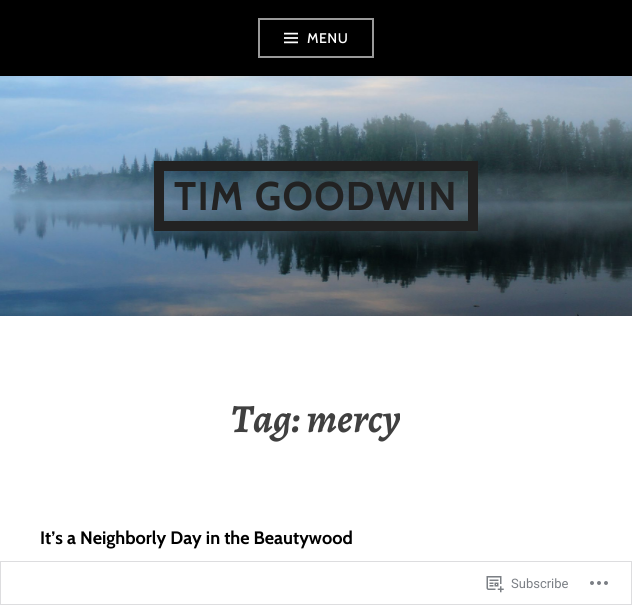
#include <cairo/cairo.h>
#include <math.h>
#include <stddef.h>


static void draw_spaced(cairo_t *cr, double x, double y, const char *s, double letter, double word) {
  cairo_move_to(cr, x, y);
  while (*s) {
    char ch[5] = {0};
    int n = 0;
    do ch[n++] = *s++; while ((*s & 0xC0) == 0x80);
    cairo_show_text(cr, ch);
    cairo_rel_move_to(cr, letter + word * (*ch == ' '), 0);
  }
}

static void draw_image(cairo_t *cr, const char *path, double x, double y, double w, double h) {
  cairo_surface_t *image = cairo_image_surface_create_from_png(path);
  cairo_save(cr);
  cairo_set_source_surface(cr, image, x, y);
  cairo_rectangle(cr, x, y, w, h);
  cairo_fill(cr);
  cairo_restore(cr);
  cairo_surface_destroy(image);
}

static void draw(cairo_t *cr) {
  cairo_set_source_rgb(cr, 1, 1, 1);
  cairo_paint(cr);
  cairo_set_source_rgb(cr, 0, 0, 0);
  cairo_rectangle(cr, 0, 0, 632, 76);
  cairo_fill(cr);
  cairo_rectangle(cr, 259, 19, 114, 38);
  cairo_set_source_rgb(cr, 153 / 255.0, 153 / 255.0, 153 / 255.0);
  cairo_stroke(cr);
  draw_image(cr, "images/1.png", 284, 32, 14, 12);
  draw_image(cr, "images/2.png", 0, 76, 632, 240);
  cairo_rectangle(cr, 159, 166, 314, 60);
  cairo_set_source_rgb(cr, 34 / 255.0, 34 / 255.0, 34 / 255.0);
  cairo_set_line_width(cr, 10);
  cairo_stroke(cr);
  cairo_rectangle(cr, 0.5, 561.5, 631, 43);
  cairo_set_source_rgba(cr, 220 / 255.0, 220 / 255.0, 222 / 255.0, 0.98);
  cairo_set_line_width(cr, 1);
  cairo_stroke(cr);
  draw_image(cr, "images/3.png", 486, 576, 18, 17);
  draw_image(cr, "images/4.png", 590, 581, 18, 4);
  cairo_select_font_face(cr, "Cabin Medium", CAIRO_FONT_SLANT_NORMAL, CAIRO_FONT_WEIGHT_NORMAL);
  cairo_set_font_size(cr, 14);
  cairo_set_source_rgb(cr, 1, 1, 1);
  draw_spaced(cr, 307, 43, "MENU", 0.5, 0);
  cairo_select_font_face(cr, "Cabin", CAIRO_FONT_SLANT_NORMAL, CAIRO_FONT_WEIGHT_BOLD);
  cairo_set_font_size(cr, 40);
  cairo_set_source_rgb(cr, 34 / 255.0, 34 / 255.0, 34 / 255.0);
  draw_spaced(cr, 174, 210, "TIM GOODWIN", 1.25, 0);
  cairo_select_font_face(cr, "Alegreya", CAIRO_FONT_SLANT_ITALIC, CAIRO_FONT_WEIGHT_BOLD);
  cairo_set_source_rgb(cr, 64 / 255.0, 64 / 255.0, 64 / 255.0);
  cairo_move_to(cr, 231, 432);
  cairo_show_text(cr, "Tag: mercy");
  cairo_select_font_face(cr, "Cabin", CAIRO_FONT_SLANT_NORMAL, CAIRO_FONT_WEIGHT_BOLD);
  cairo_set_font_size(cr, 18);
  cairo_set_source_rgb(cr, 0, 0, 0);
  cairo_move_to(cr, 40, 544);
  cairo_show_text(cr, "It’s a Neighborly Day in the Beautywood");
  cairo_select_font_face(cr, "Roboto", CAIRO_FONT_SLANT_NORMAL, CAIRO_FONT_WEIGHT_NORMAL);
  cairo_set_font_size(cr, 13);
  cairo_set_source_rgb(cr, 123 / 255.0, 127 / 255.0, 133 / 255.0);
  cairo_move_to(cr, 511, 588);
  cairo_show_text(cr, "Subscribe");
}

int main(void) {
  cairo_surface_t *surface = cairo_image_surface_create(CAIRO_FORMAT_RGB24, 632, 605);
  cairo_t *cr = cairo_create(surface);
  cairo_font_options_t *options = cairo_font_options_create();
  cairo_font_options_set_hint_metrics(options, CAIRO_HINT_METRICS_OFF);
  cairo_font_options_set_hint_style(options, CAIRO_HINT_STYLE_NONE);
  cairo_set_font_options(cr, options);
  cairo_set_miter_limit(cr, 4);
  draw(cr);
  cairo_surface_write_to_png(surface, "out.png");
  cairo_font_options_destroy(options);
  cairo_destroy(cr);
  cairo_surface_destroy(surface);
  return 0;
}
